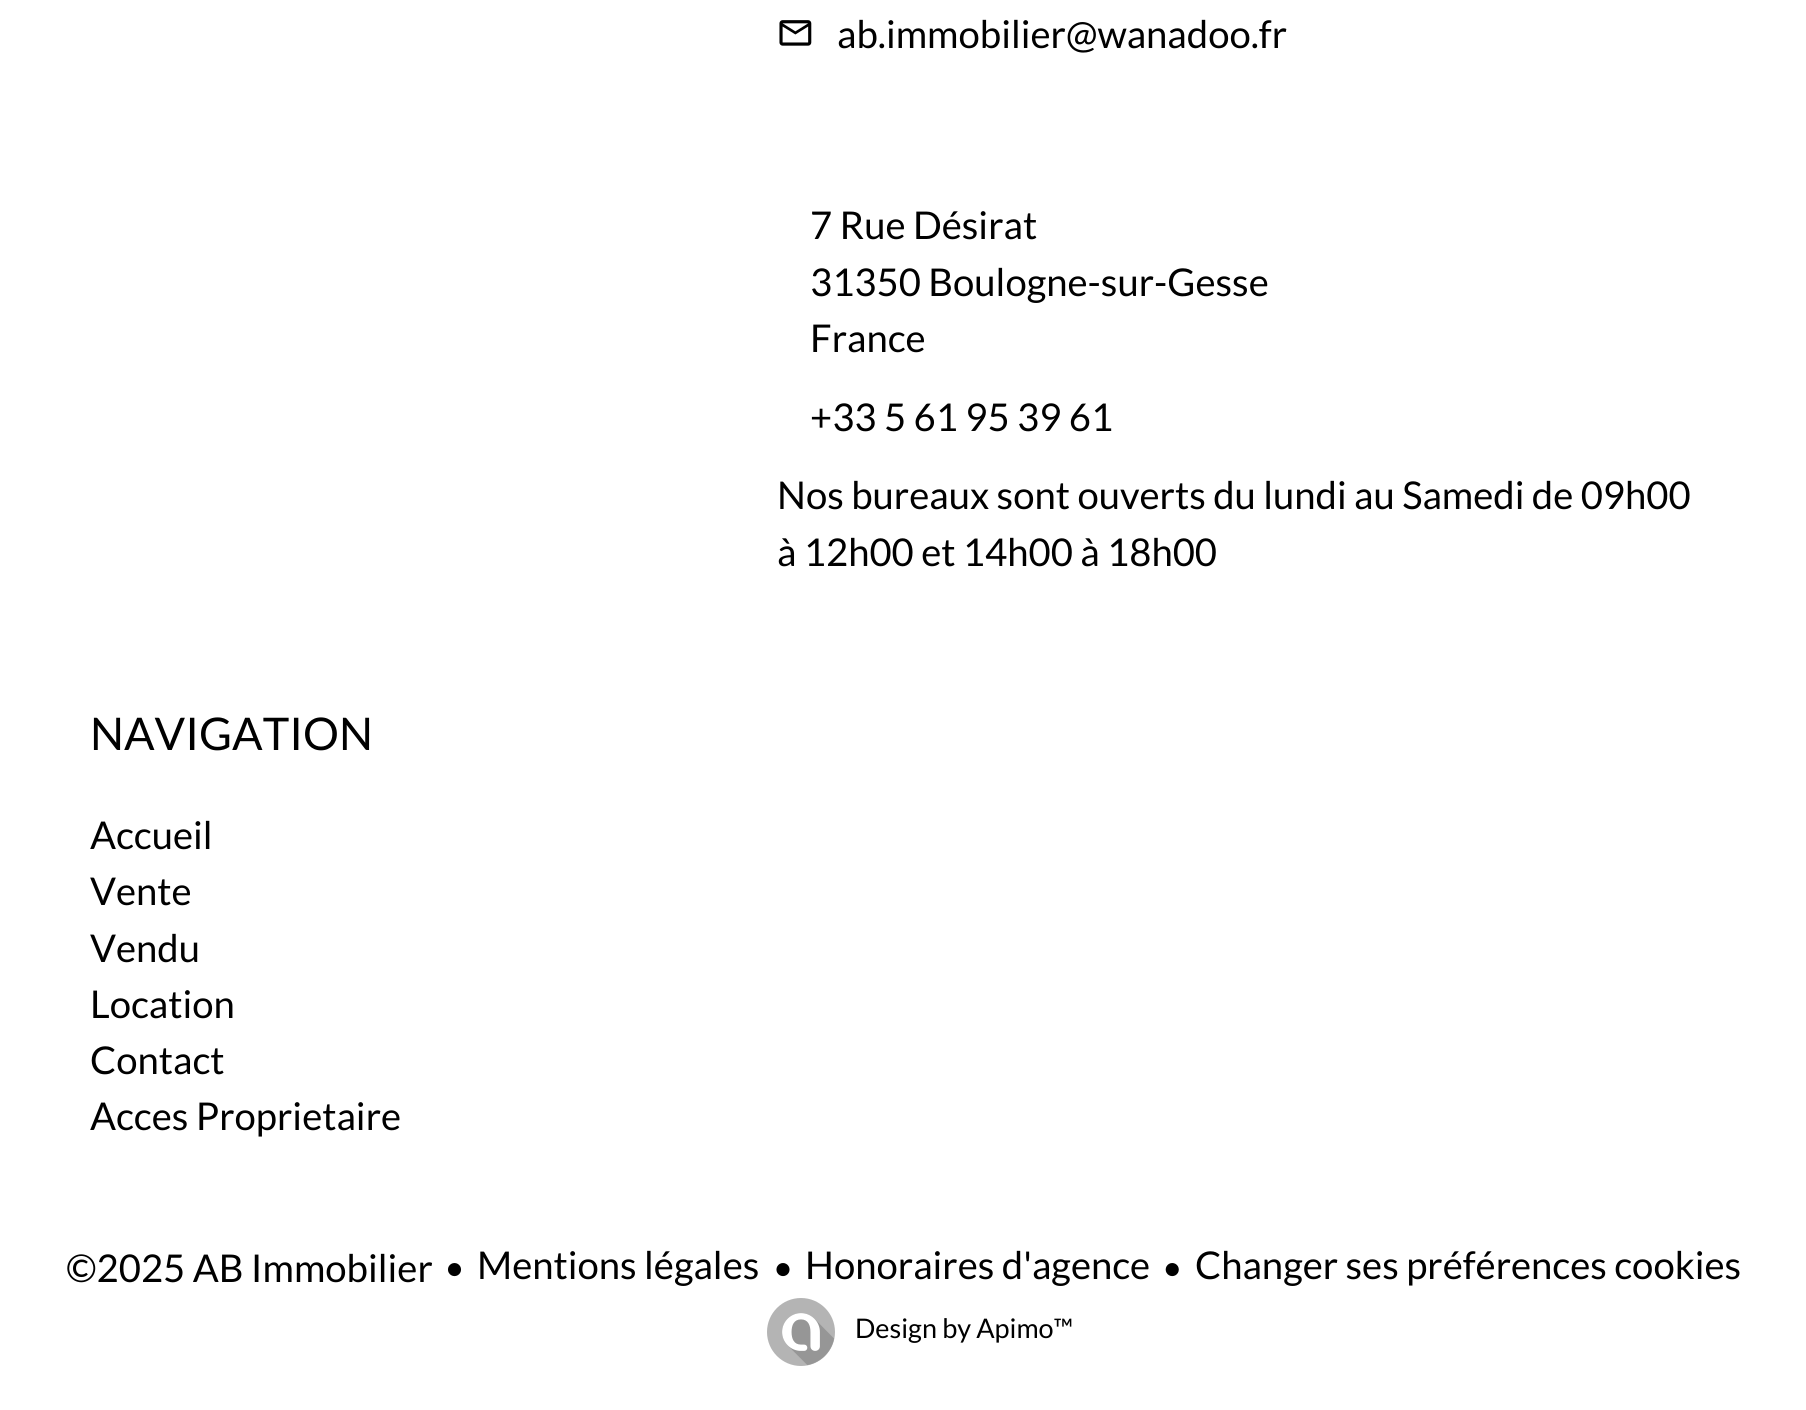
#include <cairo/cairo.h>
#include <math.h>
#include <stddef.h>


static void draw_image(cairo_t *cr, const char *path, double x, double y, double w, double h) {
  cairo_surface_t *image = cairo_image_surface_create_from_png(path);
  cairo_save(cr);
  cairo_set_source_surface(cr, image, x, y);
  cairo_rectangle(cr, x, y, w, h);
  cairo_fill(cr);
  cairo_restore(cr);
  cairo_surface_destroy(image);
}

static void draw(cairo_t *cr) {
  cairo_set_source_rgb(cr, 1, 1, 1);
  cairo_paint(cr);
  draw_image(cr, "images/1.png", 779, 20, 33, 26);
  draw_image(cr, "images/2.png", 448, 1263, 13, 14);
  draw_image(cr, "images/3.png", 776, 1263, 14, 14);
  draw_image(cr, "images/4.png", 1165, 1263, 14, 14);
  draw_image(cr, "images/5.png", 767, 1298, 68, 68);
  cairo_select_font_face(cr, "Lato", CAIRO_FONT_SLANT_NORMAL, CAIRO_FONT_WEIGHT_NORMAL);
  cairo_set_font_size(cr, 38.25);
  cairo_set_source_rgb(cr, 0, 0, 0);
  cairo_move_to(cr, 837, 48);
  cairo_show_text(cr, "ab.immobilier@wanadoo.fr");
  cairo_move_to(cr, 810, 239);
  cairo_show_text(cr, "7 Rue Désirat");
  cairo_move_to(cr, 810, 296);
  cairo_show_text(cr, "31350 Boulogne-sur-Gesse");
  cairo_move_to(cr, 810, 352);
  cairo_show_text(cr, "France");
  cairo_move_to(cr, 810, 431);
  cairo_show_text(cr, "+33 5 61 95 39 61");
  cairo_move_to(cr, 777, 509);
  cairo_show_text(cr, "Nos bureaux sont ouverts du lundi au Samedi de 09h00");
  cairo_move_to(cr, 777, 566);
  cairo_show_text(cr, "à 12h00 et 14h00 à 18h00");
  cairo_set_font_size(cr, 45);
  cairo_move_to(cr, 90, 750);
  cairo_show_text(cr, "NAVIGATION");
  cairo_set_font_size(cr, 38.25);
  cairo_move_to(cr, 90, 849);
  cairo_show_text(cr, "Accueil");
  cairo_move_to(cr, 90, 905);
  cairo_show_text(cr, "Vente");
  cairo_move_to(cr, 90, 962);
  cairo_show_text(cr, "Vendu");
  cairo_move_to(cr, 90, 1018);
  cairo_show_text(cr, "Location");
  cairo_move_to(cr, 90, 1074);
  cairo_show_text(cr, "Contact");
  cairo_move_to(cr, 90, 1130);
  cairo_show_text(cr, "Acces Proprietaire");
  cairo_move_to(cr, 66, 1282);
  cairo_show_text(cr, "©2025 AB Immobilier");
  cairo_move_to(cr, 477, 1279);
  cairo_show_text(cr, "Mentions légales");
  cairo_move_to(cr, 805, 1279);
  cairo_show_text(cr, "Honoraires d'agence");
  cairo_move_to(cr, 1195, 1279);
  cairo_show_text(cr, "Changer ses préférences cookies");
  cairo_set_font_size(cr, 27);
  cairo_move_to(cr, 855, 1338);
  cairo_show_text(cr, "Design by Apimo™");
}

int main(void) {
  cairo_surface_t *surface = cairo_image_surface_create(CAIRO_FORMAT_RGB24, 1806, 1410);
  cairo_t *cr = cairo_create(surface);
  cairo_font_options_t *options = cairo_font_options_create();
  cairo_font_options_set_hint_metrics(options, CAIRO_HINT_METRICS_OFF);
  cairo_font_options_set_hint_style(options, CAIRO_HINT_STYLE_NONE);
  cairo_set_font_options(cr, options);
  cairo_set_miter_limit(cr, 4);
  draw(cr);
  cairo_surface_write_to_png(surface, "out.png");
  cairo_font_options_destroy(options);
  cairo_destroy(cr);
  cairo_surface_destroy(surface);
  return 0;
}
